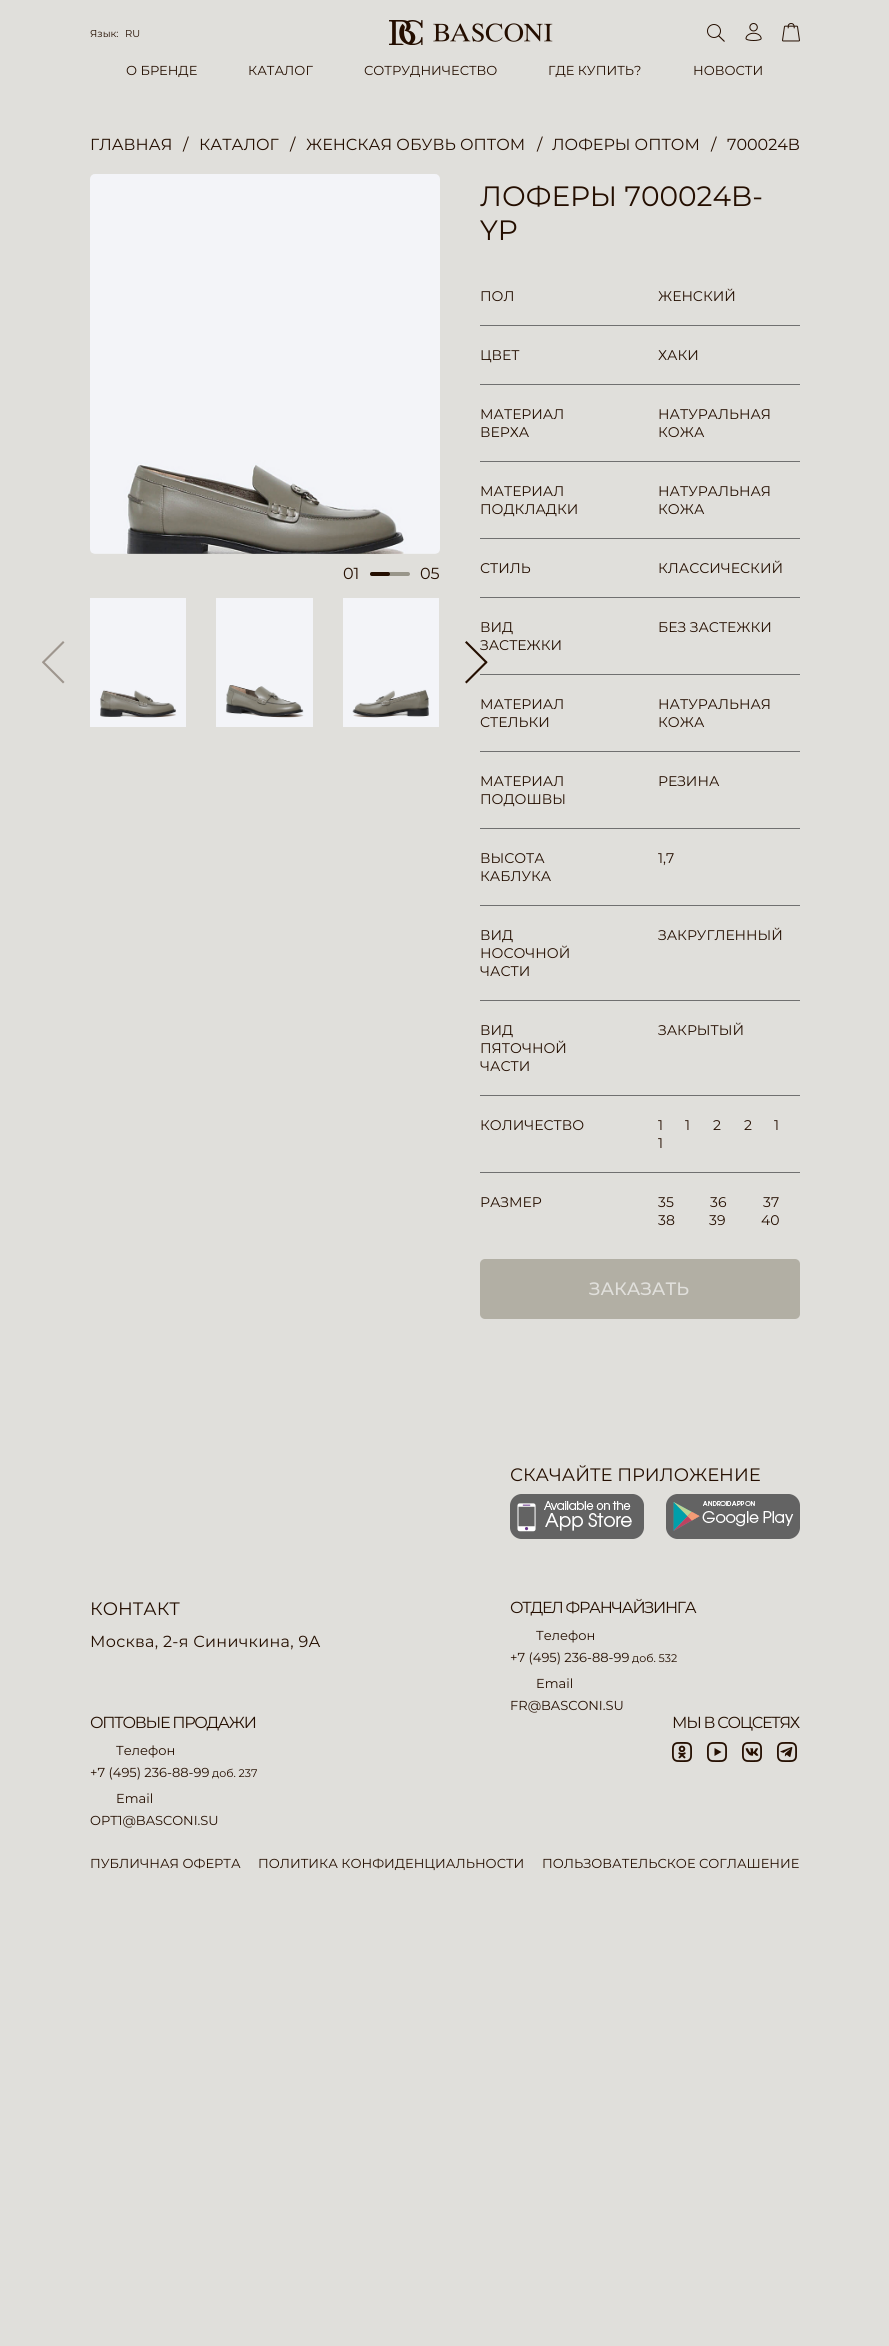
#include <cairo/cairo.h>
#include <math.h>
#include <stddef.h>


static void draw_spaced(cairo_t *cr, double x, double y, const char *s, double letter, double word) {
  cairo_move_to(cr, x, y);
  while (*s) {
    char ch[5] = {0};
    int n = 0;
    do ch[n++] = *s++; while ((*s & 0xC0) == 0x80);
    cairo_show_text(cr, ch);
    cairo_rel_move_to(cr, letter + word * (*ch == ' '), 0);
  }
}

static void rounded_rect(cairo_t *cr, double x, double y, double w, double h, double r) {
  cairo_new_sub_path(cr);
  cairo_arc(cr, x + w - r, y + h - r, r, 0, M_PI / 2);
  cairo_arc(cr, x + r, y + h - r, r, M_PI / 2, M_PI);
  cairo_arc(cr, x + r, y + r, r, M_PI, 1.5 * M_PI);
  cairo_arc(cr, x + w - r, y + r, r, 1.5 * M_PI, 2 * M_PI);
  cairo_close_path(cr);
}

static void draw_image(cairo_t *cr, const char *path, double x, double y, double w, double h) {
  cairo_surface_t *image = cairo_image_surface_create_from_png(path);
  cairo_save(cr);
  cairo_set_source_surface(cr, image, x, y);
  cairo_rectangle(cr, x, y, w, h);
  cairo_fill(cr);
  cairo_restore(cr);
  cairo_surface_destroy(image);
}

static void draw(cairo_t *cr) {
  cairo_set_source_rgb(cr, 224 / 255.0, 223 / 255.0, 219 / 255.0);
  cairo_paint(cr);
  draw_image(cr, "images/1.png", 389, 20, 164, 25);
  draw_image(cr, "images/2.png", 707, 24, 18, 18);
  draw_image(cr, "images/3.png", 745, 23, 17, 18);
  draw_image(cr, "images/4.png", 782, 23, 18, 19);
  draw_image(cr, "images/5.png", 90, 174, 350, 380);
  cairo_set_source_rgb(cr, 153 / 255.0, 150 / 255.0, 138 / 255.0);
  rounded_rect(cr, 370, 572, 40, 4, 2);
  cairo_fill(cr);
  cairo_set_source_rgb(cr, 36 / 255.0, 14 / 255.0, 0);
  rounded_rect(cr, 370, 572, 20, 4, 2);
  cairo_fill(cr);
  cairo_set_source_rgb(cr, 158 / 255.0, 150 / 255.0, 142 / 255.0);
  cairo_new_path(cr);
  cairo_move_to(cr, 43.5, 663.5);
  cairo_line_to(cr, 64.5, 642.5);
  cairo_line_to(cr, 63, 641);
  cairo_line_to(cr, 42, 662);
  cairo_close_path(cr);
  cairo_fill(cr);
  cairo_new_path(cr);
  cairo_move_to(cr, 42, 662.5);
  cairo_line_to(cr, 63, 683.5);
  cairo_line_to(cr, 64.5, 682);
  cairo_line_to(cr, 43.5, 661);
  cairo_close_path(cr);
  cairo_fill(cr);
  draw_image(cr, "images/6.png", 90, 598, 96, 129);
  draw_image(cr, "images/7.png", 216, 598, 97, 129);
  draw_image(cr, "images/8.png", 343, 598, 96, 129);
  cairo_set_source_rgb(cr, 36 / 255.0, 14 / 255.0, 0);
  cairo_new_path(cr);
  cairo_move_to(cr, 487.5, 662);
  cairo_line_to(cr, 466.5, 641);
  cairo_line_to(cr, 465, 642.5);
  cairo_line_to(cr, 486, 663.5);
  cairo_close_path(cr);
  cairo_fill(cr);
  cairo_set_source_rgb(cr, 112 / 255.0, 112 / 255.0, 112 / 255.0);
  cairo_rectangle(cr, 480, 674, 320, 1);
  cairo_fill(cr);
  cairo_set_source_rgb(cr, 36 / 255.0, 14 / 255.0, 0);
  cairo_new_path(cr);
  cairo_move_to(cr, 486, 661);
  cairo_line_to(cr, 465, 682);
  cairo_line_to(cr, 466.5, 683.5);
  cairo_line_to(cr, 487.5, 662.5);
  cairo_close_path(cr);
  cairo_fill(cr);
  cairo_set_source_rgb(cr, 112 / 255.0, 112 / 255.0, 112 / 255.0);
  cairo_rectangle(cr, 480, 325, 320, 1);
  cairo_fill(cr);
  cairo_rectangle(cr, 480, 384, 320, 1);
  cairo_fill(cr);
  cairo_rectangle(cr, 480, 461, 320, 1);
  cairo_fill(cr);
  cairo_rectangle(cr, 480, 538, 320, 1);
  cairo_fill(cr);
  cairo_rectangle(cr, 480, 597, 320, 1);
  cairo_fill(cr);
  cairo_rectangle(cr, 480, 751, 320, 1);
  cairo_fill(cr);
  cairo_rectangle(cr, 480, 828, 320, 1);
  cairo_fill(cr);
  cairo_rectangle(cr, 480, 905, 320, 1);
  cairo_fill(cr);
  cairo_rectangle(cr, 480, 1000, 320, 1);
  cairo_fill(cr);
  cairo_rectangle(cr, 480, 1095, 320, 1);
  cairo_fill(cr);
  cairo_rectangle(cr, 480, 1172, 320, 1);
  cairo_fill(cr);
  cairo_set_source_rgb(cr, 178 / 255.0, 175 / 255.0, 164 / 255.0);
  rounded_rect(cr, 480, 1259, 320, 60, 5);
  cairo_fill(cr);
  draw_image(cr, "images/9.png", 510, 1494, 134, 45);
  draw_image(cr, "images/10.png", 666, 1494, 134, 45);
  draw_image(cr, "images/11.png", 672, 1742, 20, 20);
  draw_image(cr, "images/12.png", 707, 1742, 20, 20);
  draw_image(cr, "images/13.png", 742, 1742, 20, 20);
  draw_image(cr, "images/14.png", 777, 1742, 20, 20);
  cairo_select_font_face(cr, "Montserrat", CAIRO_FONT_SLANT_NORMAL, CAIRO_FONT_WEIGHT_NORMAL);
  cairo_set_font_size(cr, 10);
  cairo_set_source_rgb(cr, 36 / 255.0, 14 / 255.0, 0);
  cairo_move_to(cr, 90, 37);
  cairo_show_text(cr, "Язык:");
  cairo_move_to(cr, 125, 37);
  cairo_show_text(cr, "RU");
  cairo_set_font_size(cr, 13);
  cairo_move_to(cr, 126, 75);
  cairo_show_text(cr, "О БРЕНДЕ");
  cairo_move_to(cr, 248, 75);
  cairo_show_text(cr, "КАТАЛОГ");
  cairo_move_to(cr, 364, 75);
  cairo_show_text(cr, "СОТРУДНИЧЕСТВО");
  cairo_move_to(cr, 548, 75);
  cairo_show_text(cr, "ГДЕ КУПИТЬ?");
  cairo_move_to(cr, 693, 75);
  cairo_show_text(cr, "НОВОСТИ");
  cairo_set_font_size(cr, 16);
  cairo_move_to(cr, 90, 150);
  cairo_show_text(cr, "ГЛАВНАЯ");
  cairo_move_to(cr, 183, 150);
  cairo_show_text(cr, "/");
  cairo_move_to(cr, 199, 150);
  cairo_show_text(cr, "КАТАЛОГ");
  cairo_move_to(cr, 290, 150);
  cairo_show_text(cr, "/");
  cairo_move_to(cr, 306, 150);
  cairo_show_text(cr, "ЖЕНСКАЯ ОБУВЬ ОПТОМ");
  cairo_move_to(cr, 537, 150);
  cairo_show_text(cr, "/");
  cairo_move_to(cr, 552, 150);
  cairo_show_text(cr, "ЛОФЕРЫ ОПТОМ");
  cairo_move_to(cr, 711, 150);
  cairo_show_text(cr, "/");
  cairo_move_to(cr, 727, 150);
  cairo_show_text(cr, "700024B");
  cairo_move_to(cr, 343, 579);
  cairo_show_text(cr, "01");
  cairo_move_to(cr, 420, 579);
  cairo_show_text(cr, "05");
  cairo_set_font_size(cr, 28);
  cairo_move_to(cr, 480, 206);
  cairo_show_text(cr, "ЛОФЕРЫ 700024B-");
  cairo_move_to(cr, 480, 240);
  cairo_show_text(cr, "YP");
  cairo_set_font_size(cr, 14);
  cairo_move_to(cr, 480, 301);
  cairo_show_text(cr, "ПОЛ");
  cairo_move_to(cr, 658, 301);
  cairo_show_text(cr, "ЖЕНСКИЙ");
  cairo_move_to(cr, 480, 360);
  cairo_show_text(cr, "ЦВЕТ");
  cairo_move_to(cr, 658, 360);
  cairo_show_text(cr, "ХАКИ");
  cairo_move_to(cr, 480, 419);
  cairo_show_text(cr, "МАТЕРИАЛ");
  cairo_move_to(cr, 480, 437);
  cairo_show_text(cr, "ВЕРХА");
  cairo_move_to(cr, 658, 419);
  cairo_show_text(cr, "НАТУРАЛЬНАЯ");
  cairo_move_to(cr, 658, 437);
  cairo_show_text(cr, "КОЖА");
  cairo_move_to(cr, 480, 496);
  cairo_show_text(cr, "МАТЕРИАЛ");
  cairo_move_to(cr, 480, 514);
  cairo_show_text(cr, "ПОДКЛАДКИ");
  cairo_move_to(cr, 658, 496);
  cairo_show_text(cr, "НАТУРАЛЬНАЯ");
  cairo_move_to(cr, 658, 514);
  cairo_show_text(cr, "КОЖА");
  cairo_move_to(cr, 480, 573);
  cairo_show_text(cr, "СТИЛЬ");
  cairo_move_to(cr, 658, 573);
  cairo_show_text(cr, "КЛАССИЧЕСКИЙ");
  cairo_move_to(cr, 480, 632);
  cairo_show_text(cr, "ВИД");
  cairo_move_to(cr, 480, 650);
  cairo_show_text(cr, "ЗАСТЕЖКИ");
  cairo_move_to(cr, 658, 632);
  cairo_show_text(cr, "БЕЗ ЗАСТЕЖКИ");
  cairo_move_to(cr, 480, 709);
  cairo_show_text(cr, "МАТЕРИАЛ");
  cairo_move_to(cr, 480, 727);
  cairo_show_text(cr, "СТЕЛЬКИ");
  cairo_move_to(cr, 658, 709);
  cairo_show_text(cr, "НАТУРАЛЬНАЯ");
  cairo_move_to(cr, 658, 727);
  cairo_show_text(cr, "КОЖА");
  cairo_move_to(cr, 480, 786);
  cairo_show_text(cr, "МАТЕРИАЛ");
  cairo_move_to(cr, 480, 804);
  cairo_show_text(cr, "ПОДОШВЫ");
  cairo_move_to(cr, 658, 786);
  cairo_show_text(cr, "РЕЗИНА");
  cairo_move_to(cr, 480, 863);
  cairo_show_text(cr, "ВЫСОТА");
  cairo_move_to(cr, 480, 881);
  cairo_show_text(cr, "КАБЛУКА");
  cairo_move_to(cr, 658, 863);
  cairo_show_text(cr, "1,7");
  cairo_move_to(cr, 480, 940);
  cairo_show_text(cr, "ВИД");
  cairo_move_to(cr, 480, 958);
  cairo_show_text(cr, "НОСОЧНОЙ");
  cairo_move_to(cr, 480, 976);
  cairo_show_text(cr, "ЧАСТИ");
  cairo_move_to(cr, 658, 940);
  cairo_show_text(cr, "ЗАКРУГЛЕННЫЙ");
  cairo_move_to(cr, 480, 1035);
  cairo_show_text(cr, "ВИД");
  cairo_move_to(cr, 480, 1053);
  cairo_show_text(cr, "ПЯТОЧНОЙ");
  cairo_move_to(cr, 480, 1071);
  cairo_show_text(cr, "ЧАСТИ");
  cairo_move_to(cr, 658, 1035);
  cairo_show_text(cr, "ЗАКРЫТЫЙ");
  cairo_move_to(cr, 480, 1130);
  cairo_show_text(cr, "КОЛИЧЕСТВО");
  cairo_move_to(cr, 658, 1130);
  cairo_show_text(cr, "1");
  cairo_move_to(cr, 685, 1130);
  cairo_show_text(cr, "1");
  cairo_move_to(cr, 713, 1130);
  cairo_show_text(cr, "2");
  cairo_move_to(cr, 744, 1130);
  cairo_show_text(cr, "2");
  cairo_move_to(cr, 774, 1130);
  cairo_show_text(cr, "1");
  cairo_move_to(cr, 658, 1148);
  cairo_show_text(cr, "1");
  cairo_move_to(cr, 480, 1207);
  cairo_show_text(cr, "РАЗМЕР");
  cairo_move_to(cr, 658, 1207);
  cairo_show_text(cr, "35");
  cairo_move_to(cr, 710, 1207);
  cairo_show_text(cr, "36");
  cairo_move_to(cr, 763, 1207);
  cairo_show_text(cr, "37");
  cairo_move_to(cr, 658, 1225);
  cairo_show_text(cr, "38");
  cairo_move_to(cr, 709, 1225);
  cairo_show_text(cr, "39");
  cairo_move_to(cr, 761, 1225);
  cairo_show_text(cr, "40");
  cairo_select_font_face(cr, "Montserrat Medium", CAIRO_FONT_SLANT_NORMAL, CAIRO_FONT_WEIGHT_NORMAL);
  cairo_set_font_size(cr, 18);
  cairo_set_source_rgb(cr, 224 / 255.0, 223 / 255.0, 219 / 255.0);
  cairo_move_to(cr, 589, 1295);
  cairo_show_text(cr, "ЗАКАЗАТЬ");
  cairo_select_font_face(cr, "Montserrat", CAIRO_FONT_SLANT_NORMAL, CAIRO_FONT_WEIGHT_NORMAL);
  cairo_set_source_rgb(cr, 36 / 255.0, 14 / 255.0, 0);
  cairo_move_to(cr, 510, 1481);
  cairo_show_text(cr, "СКАЧАЙТЕ ПРИЛОЖЕНИЕ");
  cairo_move_to(cr, 90, 1615);
  cairo_show_text(cr, "КОНТАКТ");
  cairo_set_font_size(cr, 16);
  draw_spaced(cr, 90, 1647, "Москва, 2-я Синичкина, 9А", 0.3, 0);
  draw_spaced(cr, 510, 1613, "ОТДЕЛ ФРАНЧАЙЗИНГА", -1.25, 0);
  cairo_set_font_size(cr, 13);
  cairo_move_to(cr, 536, 1640);
  cairo_show_text(cr, "Телефон");
  cairo_move_to(cr, 510, 1662);
  cairo_show_text(cr, "+7 (495) 236-88-99");
  cairo_set_font_size(cr, 11);
  cairo_move_to(cr, 632, 1662);
  cairo_show_text(cr, "доб. 532");
  cairo_set_font_size(cr, 13);
  cairo_move_to(cr, 536, 1688);
  cairo_show_text(cr, "Email");
  cairo_move_to(cr, 510, 1710);
  cairo_show_text(cr, "FR@BASCONI.SU");
  cairo_set_font_size(cr, 16);
  draw_spaced(cr, 90, 1728, "ОПТОВЫЕ ПРОДАЖИ", -1.25, 0);
  cairo_set_font_size(cr, 13);
  cairo_move_to(cr, 116, 1755);
  cairo_show_text(cr, "Телефон");
  cairo_move_to(cr, 90, 1777);
  cairo_show_text(cr, "+7 (495) 236-88-99");
  cairo_set_font_size(cr, 11);
  cairo_move_to(cr, 212, 1777);
  cairo_show_text(cr, "доб. 237");
  cairo_set_font_size(cr, 13);
  cairo_move_to(cr, 116, 1803);
  cairo_show_text(cr, "Email");
  cairo_move_to(cr, 90, 1825);
  cairo_show_text(cr, "OPT1@BASCONI.SU");
  cairo_set_font_size(cr, 16);
  draw_spaced(cr, 672, 1728, "МЫ В СОЦСЕТЯХ", -1.25, 0);
  cairo_set_font_size(cr, 13);
  cairo_move_to(cr, 90, 1868);
  cairo_show_text(cr, "ПУБЛИЧНАЯ ОФЕРТА");
  cairo_move_to(cr, 258, 1868);
  cairo_show_text(cr, "ПОЛИТИКА КОНФИДЕНЦИАЛЬНОСТИ");
  cairo_move_to(cr, 542, 1868);
  cairo_show_text(cr, "ПОЛЬЗОВАТЕЛЬСКОЕ СОГЛАШЕНИЕ");
}

int main(void) {
  cairo_surface_t *surface = cairo_image_surface_create(CAIRO_FORMAT_RGB24, 889, 2346);
  cairo_t *cr = cairo_create(surface);
  cairo_font_options_t *options = cairo_font_options_create();
  cairo_font_options_set_hint_metrics(options, CAIRO_HINT_METRICS_OFF);
  cairo_font_options_set_hint_style(options, CAIRO_HINT_STYLE_NONE);
  cairo_set_font_options(cr, options);
  cairo_set_miter_limit(cr, 4);
  draw(cr);
  cairo_surface_write_to_png(surface, "out.png");
  cairo_font_options_destroy(options);
  cairo_destroy(cr);
  cairo_surface_destroy(surface);
  return 0;
}
